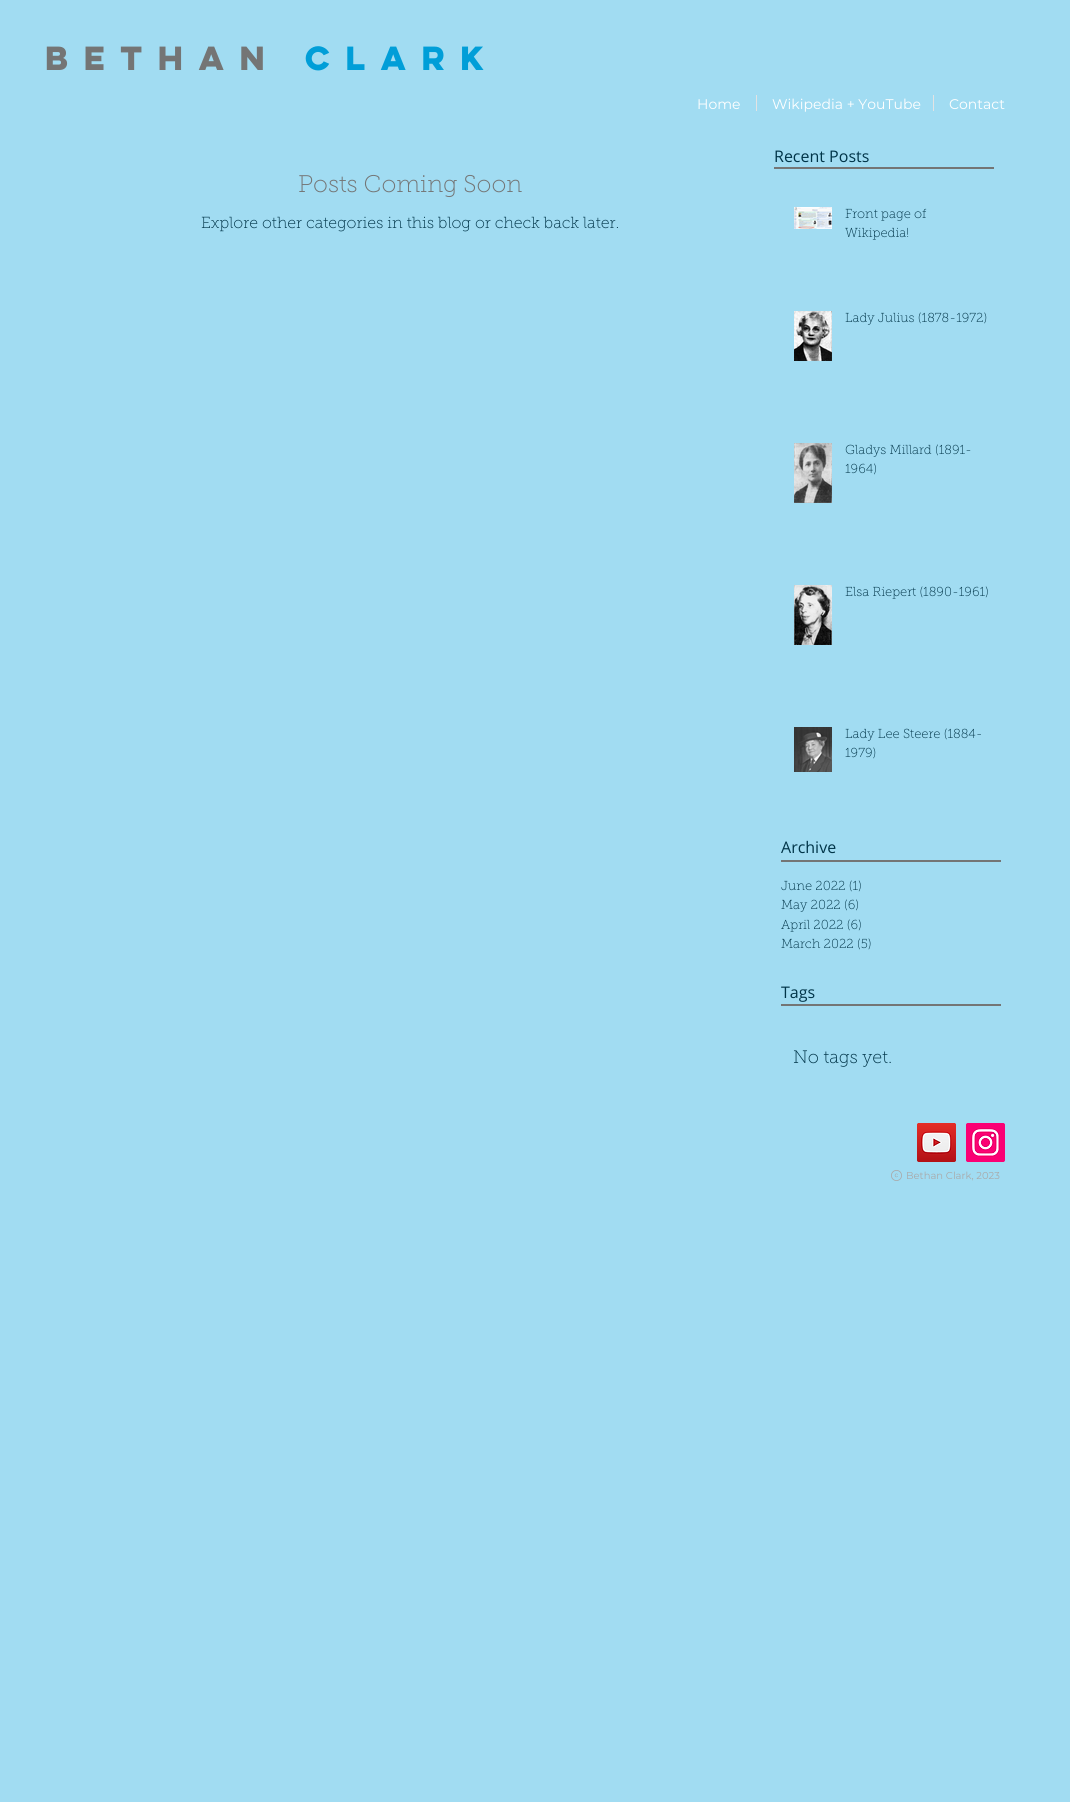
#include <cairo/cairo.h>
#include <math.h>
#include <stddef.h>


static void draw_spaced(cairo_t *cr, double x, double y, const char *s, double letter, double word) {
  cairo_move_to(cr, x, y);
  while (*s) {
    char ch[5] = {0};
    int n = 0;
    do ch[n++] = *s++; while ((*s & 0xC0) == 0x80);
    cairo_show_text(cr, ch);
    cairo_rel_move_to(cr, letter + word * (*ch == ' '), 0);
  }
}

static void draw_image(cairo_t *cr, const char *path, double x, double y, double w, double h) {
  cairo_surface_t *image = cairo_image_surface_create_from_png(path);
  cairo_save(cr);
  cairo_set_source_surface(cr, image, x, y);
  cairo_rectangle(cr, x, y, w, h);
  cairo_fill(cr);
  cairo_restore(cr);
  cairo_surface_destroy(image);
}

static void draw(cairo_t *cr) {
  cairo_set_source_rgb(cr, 161 / 255.0, 220 / 255.0, 242 / 255.0);
  cairo_paint(cr);
  cairo_set_source_rgb(cr, 227 / 255.0, 227 / 255.0, 227 / 255.0);
  cairo_rectangle(cr, 756, 95, 1, 16);
  cairo_fill(cr);
  cairo_rectangle(cr, 933, 95, 1, 16);
  cairo_fill(cr);
  cairo_set_source_rgb(cr, 116 / 255.0, 117 / 255.0, 117 / 255.0);
  cairo_rectangle(cr, 774, 167, 220, 2);
  cairo_fill(cr);
  draw_image(cr, "images/1.png", 794, 207, 38, 22);
  draw_image(cr, "images/2.png", 794, 311, 38, 50);
  draw_image(cr, "images/3.png", 794, 443, 38, 60);
  draw_image(cr, "images/4.png", 794, 585, 38, 60);
  draw_image(cr, "images/5.png", 794, 727, 38, 45);
  cairo_rectangle(cr, 781, 860, 220, 2);
  cairo_fill(cr);
  cairo_rectangle(cr, 781, 1004, 220, 2);
  cairo_fill(cr);
  draw_image(cr, "images/6.png", 917, 1123, 39, 39);
  draw_image(cr, "images/7.png", 966, 1123, 39, 39);
  draw_image(cr, "images/8.png", 891, 1170, 11, 11);
  cairo_select_font_face(cr, "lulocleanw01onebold", CAIRO_FONT_SLANT_NORMAL, CAIRO_FONT_WEIGHT_BOLD);
  cairo_set_font_size(cr, 30);
  draw_spaced(cr, 45, 70, "BETHAN", 9, 0);
  cairo_set_source_rgb(cr, 0, 158 / 255.0, 216 / 255.0);
  draw_spaced(cr, 305, 70, "CLARK", 9, 0);
  cairo_select_font_face(cr, "Montserrat", CAIRO_FONT_SLANT_NORMAL, CAIRO_FONT_WEIGHT_NORMAL);
  cairo_set_font_size(cr, 14);
  cairo_set_source_rgb(cr, 1, 1, 1);
  cairo_move_to(cr, 697, 109);
  cairo_show_text(cr, "Home");
  cairo_move_to(cr, 772, 109);
  cairo_show_text(cr, "Wikipedia + YouTube");
  cairo_move_to(cr, 949, 109);
  cairo_show_text(cr, "Contact");
  cairo_select_font_face(cr, "Open Sans", CAIRO_FONT_SLANT_NORMAL, CAIRO_FONT_WEIGHT_NORMAL);
  cairo_set_font_size(cr, 16);
  cairo_set_source_rgb(cr, 0, 52 / 255.0, 72 / 255.0);
  cairo_move_to(cr, 774, 162);
  cairo_show_text(cr, "Recent Posts");
  cairo_select_font_face(cr, "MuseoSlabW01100 Thin", CAIRO_FONT_SLANT_NORMAL, CAIRO_FONT_WEIGHT_NORMAL);
  cairo_set_font_size(cr, 24);
  cairo_set_source_rgb(cr, 116 / 255.0, 117 / 255.0, 117 / 255.0);
  cairo_move_to(cr, 298, 192);
  cairo_show_text(cr, "Posts Coming Soon");
  cairo_set_font_size(cr, 16);
  cairo_set_source_rgb(cr, 0, 52 / 255.0, 72 / 255.0);
  cairo_move_to(cr, 201, 228);
  cairo_show_text(cr, "Explore other categories in this blog or check back later.");
  cairo_set_font_size(cr, 13);
  cairo_move_to(cr, 845, 218);
  cairo_show_text(cr, "Front page of");
  cairo_move_to(cr, 845, 237);
  cairo_show_text(cr, "Wikipedia!");
  cairo_move_to(cr, 845, 322);
  cairo_show_text(cr, "Lady Julius (1878-1972)");
  cairo_move_to(cr, 845, 454);
  cairo_show_text(cr, "Gladys Millard (1891-");
  cairo_move_to(cr, 845, 473);
  cairo_show_text(cr, "1964)");
  cairo_move_to(cr, 845, 596);
  cairo_show_text(cr, "Elsa Riepert (1890-1961)");
  cairo_move_to(cr, 845, 738);
  cairo_show_text(cr, "Lady Lee Steere (1884-");
  cairo_move_to(cr, 845, 757);
  cairo_show_text(cr, "1979)");
  cairo_select_font_face(cr, "Open Sans", CAIRO_FONT_SLANT_NORMAL, CAIRO_FONT_WEIGHT_NORMAL);
  cairo_set_font_size(cr, 16);
  cairo_move_to(cr, 781, 853);
  cairo_show_text(cr, "Archive");
  cairo_select_font_face(cr, "MuseoSlabW01100 Thin", CAIRO_FONT_SLANT_NORMAL, CAIRO_FONT_WEIGHT_NORMAL);
  cairo_set_font_size(cr, 13);
  cairo_move_to(cr, 781, 890);
  cairo_show_text(cr, "June 2022 (1)");
  cairo_move_to(cr, 781, 909);
  cairo_show_text(cr, "May 2022 (6)");
  cairo_move_to(cr, 781, 929);
  cairo_show_text(cr, "April 2022 (6)");
  cairo_move_to(cr, 781, 948);
  cairo_show_text(cr, "March 2022 (5)");
  cairo_select_font_face(cr, "Open Sans", CAIRO_FONT_SLANT_NORMAL, CAIRO_FONT_WEIGHT_NORMAL);
  cairo_set_font_size(cr, 16);
  cairo_move_to(cr, 781, 998);
  cairo_show_text(cr, "Tags");
  cairo_select_font_face(cr, "MuseoSlabW01100 Thin", CAIRO_FONT_SLANT_NORMAL, CAIRO_FONT_WEIGHT_NORMAL);
  cairo_set_font_size(cr, 18);
  cairo_move_to(cr, 793, 1063);
  cairo_show_text(cr, "No tags yet.");
  cairo_select_font_face(cr, "Montserrat", CAIRO_FONT_SLANT_NORMAL, CAIRO_FONT_WEIGHT_NORMAL);
  cairo_set_font_size(cr, 10);
  cairo_set_source_rgb(cr, 169 / 255.0, 169 / 255.0, 169 / 255.0);
  cairo_move_to(cr, 906, 1179);
  cairo_show_text(cr, "Bethan Clark, 2023");
}

int main(void) {
  cairo_surface_t *surface = cairo_image_surface_create(CAIRO_FORMAT_RGB24, 1070, 1802);
  cairo_t *cr = cairo_create(surface);
  cairo_font_options_t *options = cairo_font_options_create();
  cairo_font_options_set_hint_metrics(options, CAIRO_HINT_METRICS_OFF);
  cairo_font_options_set_hint_style(options, CAIRO_HINT_STYLE_NONE);
  cairo_set_font_options(cr, options);
  cairo_set_miter_limit(cr, 4);
  draw(cr);
  cairo_surface_write_to_png(surface, "out.png");
  cairo_font_options_destroy(options);
  cairo_destroy(cr);
  cairo_surface_destroy(surface);
  return 0;
}
